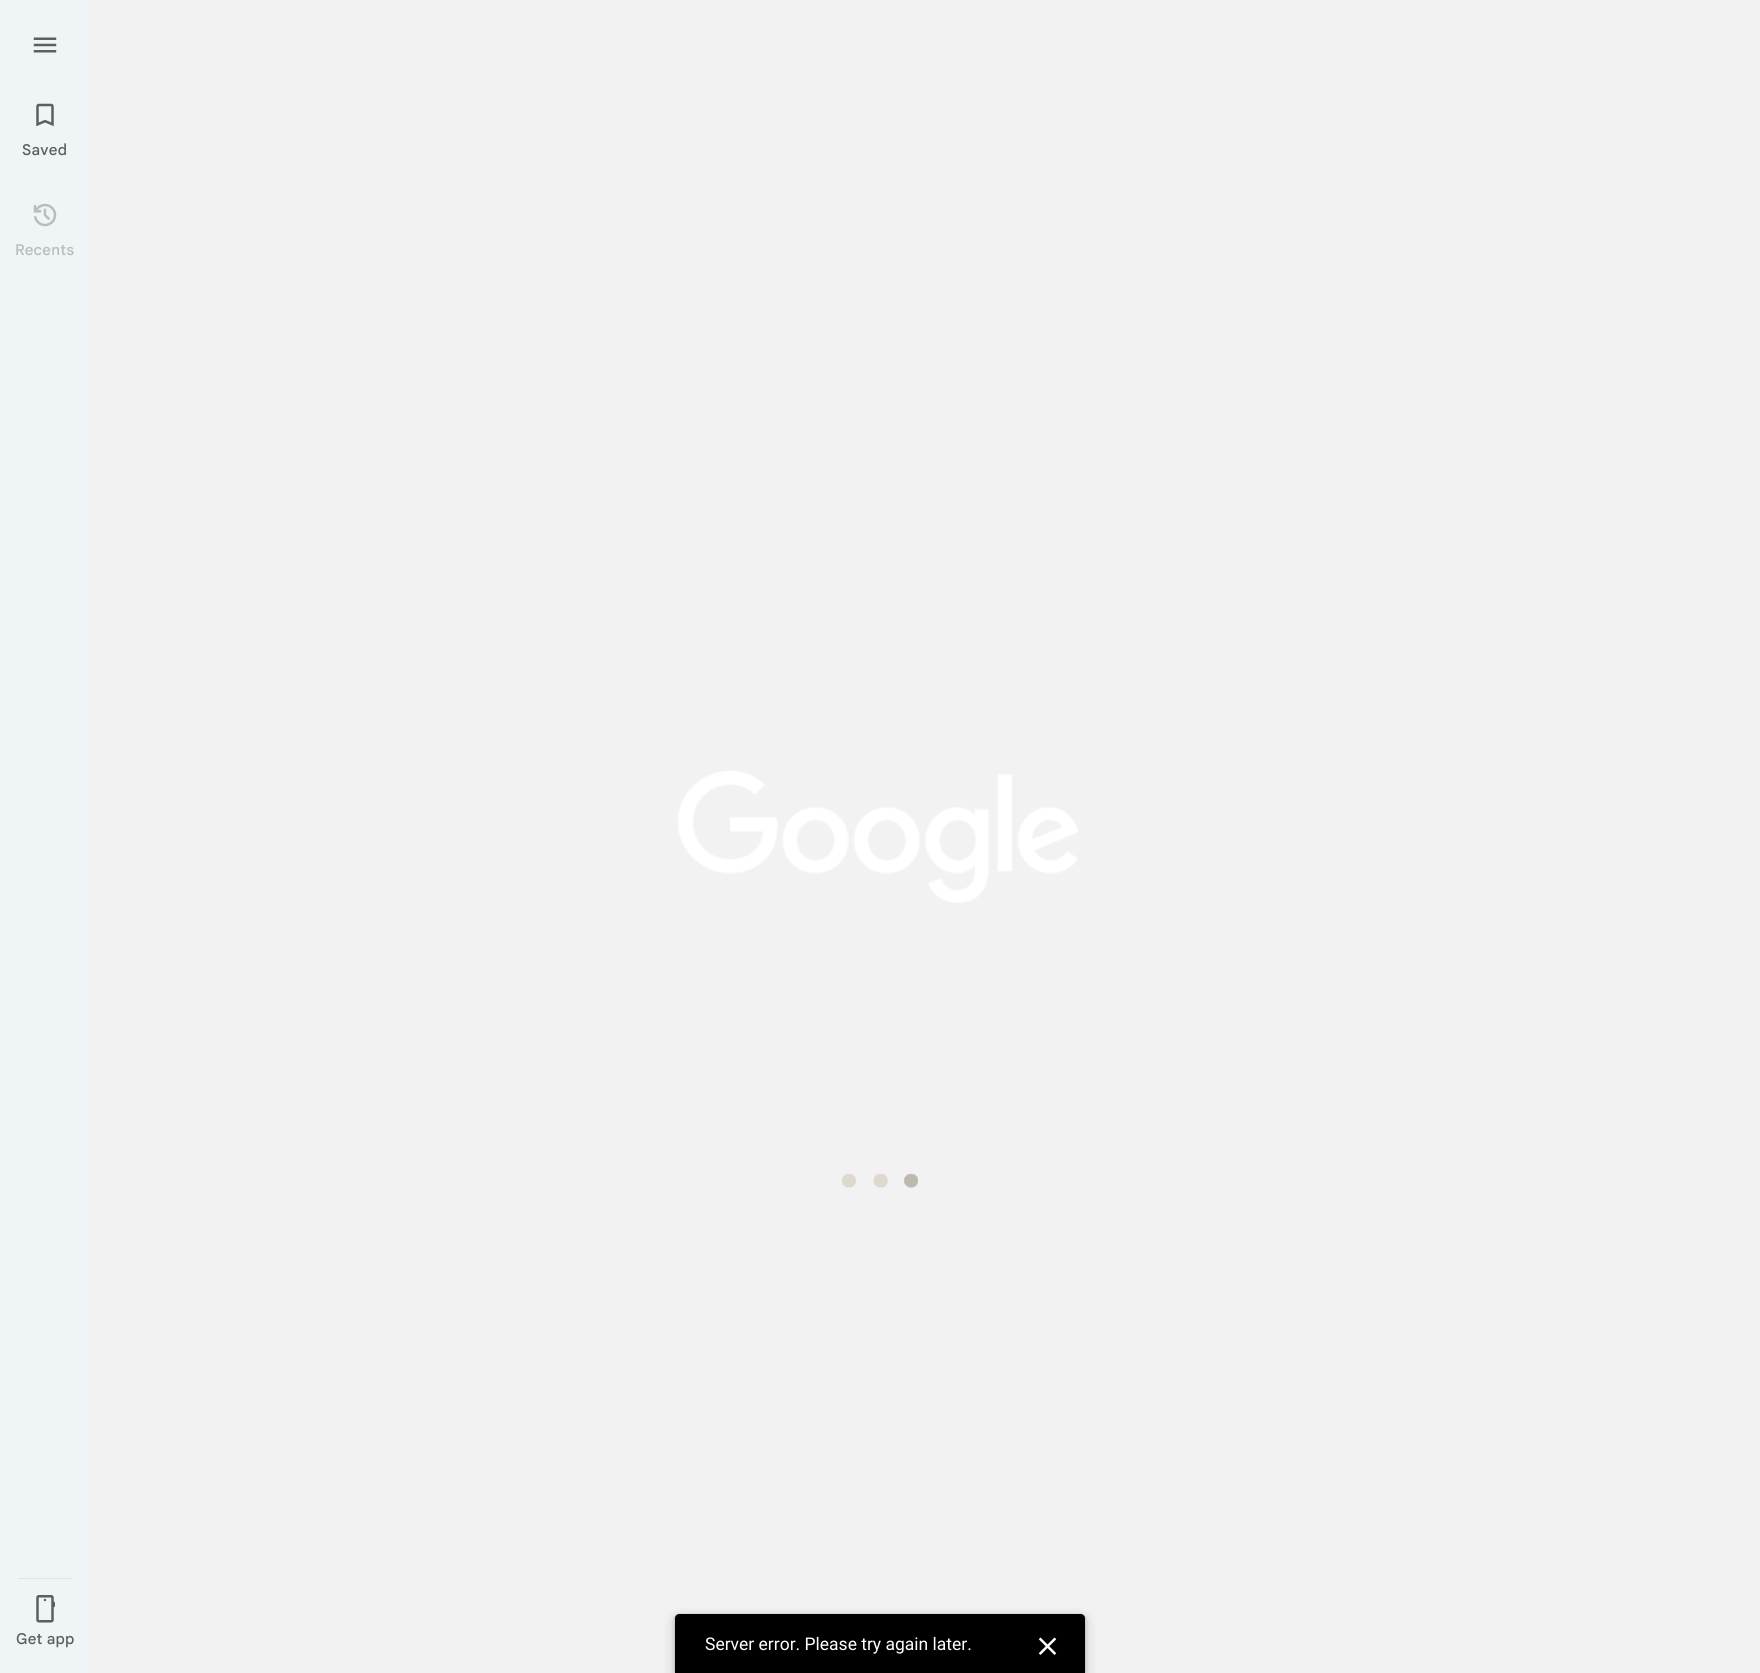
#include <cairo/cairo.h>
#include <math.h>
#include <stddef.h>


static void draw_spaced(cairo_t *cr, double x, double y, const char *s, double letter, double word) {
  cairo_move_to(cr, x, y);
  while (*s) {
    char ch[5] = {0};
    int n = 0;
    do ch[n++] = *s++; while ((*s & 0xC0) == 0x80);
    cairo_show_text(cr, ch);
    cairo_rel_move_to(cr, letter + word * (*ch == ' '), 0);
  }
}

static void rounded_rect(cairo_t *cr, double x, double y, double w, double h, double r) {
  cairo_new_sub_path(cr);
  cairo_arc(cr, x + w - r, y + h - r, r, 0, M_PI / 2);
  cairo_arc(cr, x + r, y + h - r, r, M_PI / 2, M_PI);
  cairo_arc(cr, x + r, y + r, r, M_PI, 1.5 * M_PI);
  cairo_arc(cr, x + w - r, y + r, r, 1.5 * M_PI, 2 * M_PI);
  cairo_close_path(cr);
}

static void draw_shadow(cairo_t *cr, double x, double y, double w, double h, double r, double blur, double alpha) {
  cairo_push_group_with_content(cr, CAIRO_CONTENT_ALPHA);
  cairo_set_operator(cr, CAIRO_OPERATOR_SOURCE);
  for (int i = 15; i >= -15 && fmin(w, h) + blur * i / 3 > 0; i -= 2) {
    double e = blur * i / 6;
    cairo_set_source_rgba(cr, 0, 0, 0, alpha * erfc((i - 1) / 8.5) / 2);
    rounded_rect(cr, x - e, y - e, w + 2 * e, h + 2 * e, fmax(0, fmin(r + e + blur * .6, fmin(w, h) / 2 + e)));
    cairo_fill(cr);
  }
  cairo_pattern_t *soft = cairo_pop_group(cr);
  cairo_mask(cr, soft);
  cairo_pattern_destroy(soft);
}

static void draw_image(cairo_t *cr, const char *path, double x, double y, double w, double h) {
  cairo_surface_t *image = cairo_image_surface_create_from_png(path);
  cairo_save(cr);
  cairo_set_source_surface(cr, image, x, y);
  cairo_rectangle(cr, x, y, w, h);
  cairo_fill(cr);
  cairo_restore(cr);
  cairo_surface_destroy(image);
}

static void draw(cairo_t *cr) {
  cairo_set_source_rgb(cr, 242 / 255.0, 242 / 255.0, 242 / 255.0);
  cairo_paint(cr);
  cairo_set_source_rgb(cr, 239 / 255.0, 245 / 255.0, 246 / 255.0);
  cairo_rectangle(cr, 0, 0, 90, 1673);
  cairo_fill(cr);
  draw_image(cr, "images/1.png", 33, 37, 24, 16);
  draw_image(cr, "images/2.png", 36, 103, 18, 24);
  draw_image(cr, "images/3.png", 33, 203, 24, 24);
  cairo_set_source_rgb(cr, 227 / 255.0, 227 / 255.0, 227 / 255.0);
  cairo_rectangle(cr, 18, 1578, 55, 1);
  cairo_fill(cr);
  draw_image(cr, "images/4.png", 36, 1595, 19, 28);
  draw_image(cr, "images/5.png", 677, 770, 402, 133);
  draw_image(cr, "images/6.png", 842, 1173, 76, 15);
  cairo_set_source_rgb(cr, 60 / 255.0, 64 / 255.0, 67 / 255.0);
  draw_shadow(cr, 671, 1615, 418, 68, 8, 5, 0.15);
  draw_shadow(cr, 675, 1615, 410, 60, 4, 2, 0.3);
  cairo_set_source_rgb(cr, 0, 0, 0);
  cairo_new_path(cr);
  cairo_move_to(cr, 679, 1614);
  cairo_line_to(cr, 1081, 1614);
  cairo_curve_to(cr, 1083, 1614, 1085, 1616, 1085, 1618);
  cairo_line_to(cr, 1085, 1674);
  cairo_line_to(cr, 675, 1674);
  cairo_line_to(cr, 675, 1618);
  cairo_curve_to(cr, 675, 1616, 677, 1614, 679, 1614);
  cairo_close_path(cr);
  cairo_fill(cr);
  draw_image(cr, "images/7.png", 1038, 1637, 19, 18);
  cairo_select_font_face(cr, "Google Sans Medium", CAIRO_FONT_SLANT_NORMAL, CAIRO_FONT_WEIGHT_NORMAL);
  cairo_set_font_size(cr, 15);
  cairo_set_source_rgb(cr, 94 / 255.0, 94 / 255.0, 94 / 255.0);
  draw_spaced(cr, 22, 155, "Saved", 0.25, 0);
  cairo_set_source_rgb(cr, 184 / 255.0, 188 / 255.0, 188 / 255.0);
  draw_spaced(cr, 15, 255, "Recents", 0.25, 0);
  cairo_set_source_rgb(cr, 94 / 255.0, 94 / 255.0, 94 / 255.0);
  draw_spaced(cr, 16, 1644, "Get app", 0.25, 0);
  cairo_select_font_face(cr, "Roboto", CAIRO_FONT_SLANT_NORMAL, CAIRO_FONT_WEIGHT_NORMAL);
  cairo_set_font_size(cr, 17.5);
  cairo_set_source_rgb(cr, 1, 1, 1);
  cairo_move_to(cr, 705, 1650);
  cairo_show_text(cr, "Server error. Please try again later.");
}

int main(void) {
  cairo_surface_t *surface = cairo_image_surface_create(CAIRO_FORMAT_RGB24, 1760, 1673);
  cairo_t *cr = cairo_create(surface);
  cairo_font_options_t *options = cairo_font_options_create();
  cairo_font_options_set_hint_metrics(options, CAIRO_HINT_METRICS_OFF);
  cairo_font_options_set_hint_style(options, CAIRO_HINT_STYLE_NONE);
  cairo_set_font_options(cr, options);
  cairo_set_miter_limit(cr, 4);
  draw(cr);
  cairo_surface_write_to_png(surface, "out.png");
  cairo_font_options_destroy(options);
  cairo_destroy(cr);
  cairo_surface_destroy(surface);
  return 0;
}
